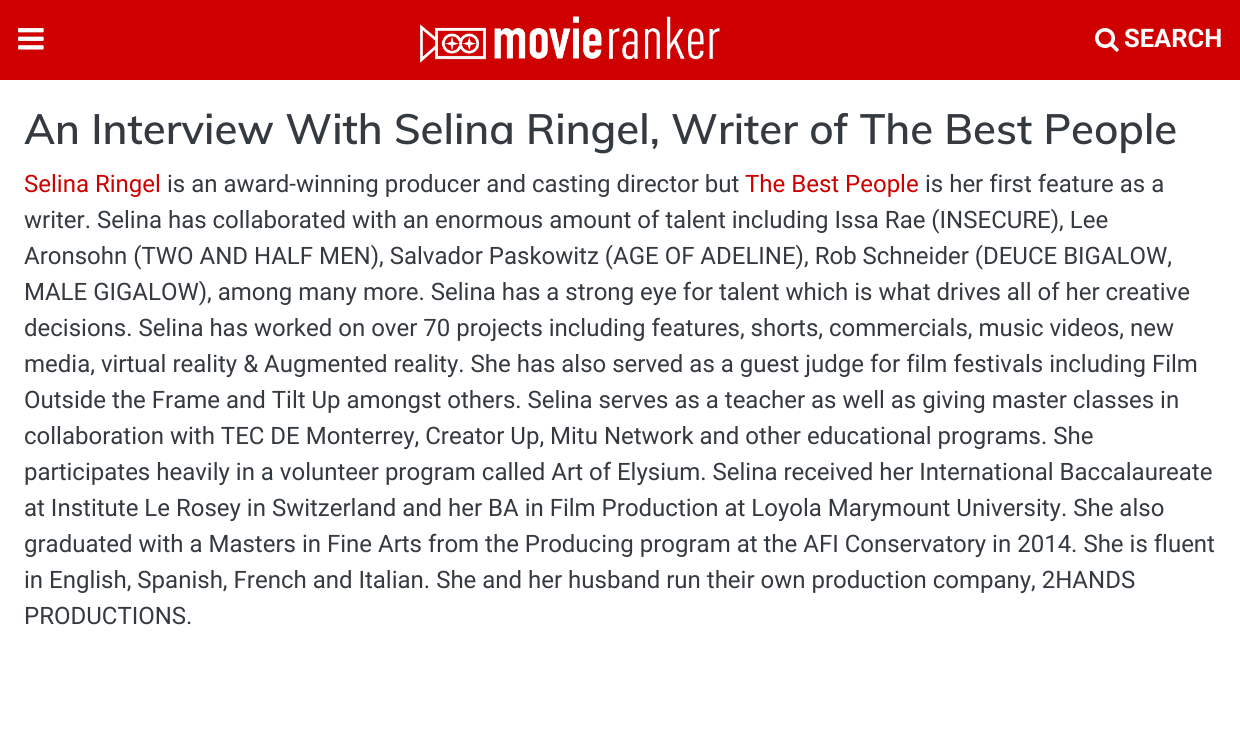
#include <cairo/cairo.h>
#include <math.h>
#include <stddef.h>


static void draw_image(cairo_t *cr, const char *path, double x, double y, double w, double h) {
  cairo_surface_t *image = cairo_image_surface_create_from_png(path);
  cairo_save(cr);
  cairo_set_source_surface(cr, image, x, y);
  cairo_rectangle(cr, x, y, w, h);
  cairo_fill(cr);
  cairo_restore(cr);
  cairo_surface_destroy(image);
}

static void draw(cairo_t *cr) {
  cairo_set_source_rgb(cr, 1, 1, 1);
  cairo_paint(cr);
  cairo_set_source_rgb(cr, 206 / 255.0, 1 / 255.0, 0);
  cairo_rectangle(cr, 0, 0, 1240, 80);
  cairo_fill(cr);
  draw_image(cr, "images/1.png", 18, 28, 26, 22);
  draw_image(cr, "images/2.png", 420, 16, 300, 47);
  draw_image(cr, "images/3.png", 1095, 28, 24, 24);
  cairo_select_font_face(cr, "Roboto", CAIRO_FONT_SLANT_NORMAL, CAIRO_FONT_WEIGHT_BOLD);
  cairo_set_font_size(cr, 25.5);
  cairo_set_source_rgb(cr, 1, 1, 1);
  cairo_move_to(cr, 1124, 47);
  cairo_show_text(cr, "SEARCH");
  cairo_select_font_face(cr, "Muli SemiBold", CAIRO_FONT_SLANT_NORMAL, CAIRO_FONT_WEIGHT_NORMAL);
  cairo_set_font_size(cr, 42);
  cairo_set_source_rgb(cr, 52 / 255.0, 58 / 255.0, 64 / 255.0);
  cairo_move_to(cr, 24, 144);
  cairo_show_text(cr, "An Interview With Selina Ringel, Writer of The Best People");
  cairo_select_font_face(cr, "Roboto", CAIRO_FONT_SLANT_NORMAL, CAIRO_FONT_WEIGHT_NORMAL);
  cairo_set_font_size(cr, 24);
  cairo_set_source_rgb(cr, 206 / 255.0, 1 / 255.0, 0);
  cairo_move_to(cr, 24, 192);
  cairo_show_text(cr, "Selina Ringel");
  cairo_set_source_rgb(cr, 52 / 255.0, 58 / 255.0, 64 / 255.0);
  cairo_move_to(cr, 167, 192);
  cairo_show_text(cr, "is an award-winning producer and casting director but");
  cairo_set_source_rgb(cr, 206 / 255.0, 1 / 255.0, 0);
  cairo_move_to(cr, 745, 192);
  cairo_show_text(cr, "The Best People");
  cairo_set_source_rgb(cr, 52 / 255.0, 58 / 255.0, 64 / 255.0);
  cairo_move_to(cr, 925, 192);
  cairo_show_text(cr, "is her first feature as a");
  cairo_move_to(cr, 24, 228);
  cairo_show_text(cr, "writer. Selina has collaborated with an enormous amount of talent including Issa Rae (INSECURE), Lee");
  cairo_move_to(cr, 24, 264);
  cairo_show_text(cr, "Aronsohn (TWO AND HALF MEN), Salvador Paskowitz (AGE OF ADELINE), Rob Schneider (DEUCE BIGALOW,");
  cairo_move_to(cr, 24, 300);
  cairo_show_text(cr, "MALE GIGALOW), among many more. Selina has a strong eye for talent which is what drives all of her creative");
  cairo_move_to(cr, 24, 336);
  cairo_show_text(cr, "decisions. Selina has worked on over 70 projects including features, shorts, commercials, music videos, new");
  cairo_move_to(cr, 24, 372);
  cairo_show_text(cr, "media, virtual reality & Augmented reality. She has also served as a guest judge for film festivals including Film");
  cairo_move_to(cr, 24, 408);
  cairo_show_text(cr, "Outside the Frame and Tilt Up amongst others. Selina serves as a teacher as well as giving master classes in");
  cairo_move_to(cr, 24, 444);
  cairo_show_text(cr, "collaboration with TEC DE Monterrey, Creator Up, Mitu Network and other educational programs. She");
  cairo_move_to(cr, 24, 480);
  cairo_show_text(cr, "participates heavily in a volunteer program called Art of Elysium. Selina received her International Baccalaureate");
  cairo_move_to(cr, 24, 516);
  cairo_show_text(cr, "at Institute Le Rosey in Switzerland and her BA in Film Production at Loyola Marymount University. She also");
  cairo_move_to(cr, 24, 552);
  cairo_show_text(cr, "graduated with a Masters in Fine Arts from the Producing program at the AFI Conservatory in 2014. She is fluent");
  cairo_move_to(cr, 24, 588);
  cairo_show_text(cr, "in English, Spanish, French and Italian. She and her husband run their own production company, 2HANDS");
  cairo_move_to(cr, 24, 624);
  cairo_show_text(cr, "PRODUCTIONS.");
}

int main(void) {
  cairo_surface_t *surface = cairo_image_surface_create(CAIRO_FORMAT_RGB24, 1240, 735);
  cairo_t *cr = cairo_create(surface);
  cairo_font_options_t *options = cairo_font_options_create();
  cairo_font_options_set_hint_metrics(options, CAIRO_HINT_METRICS_OFF);
  cairo_font_options_set_hint_style(options, CAIRO_HINT_STYLE_NONE);
  cairo_set_font_options(cr, options);
  cairo_set_miter_limit(cr, 4);
  draw(cr);
  cairo_surface_write_to_png(surface, "out.png");
  cairo_font_options_destroy(options);
  cairo_destroy(cr);
  cairo_surface_destroy(surface);
  return 0;
}
